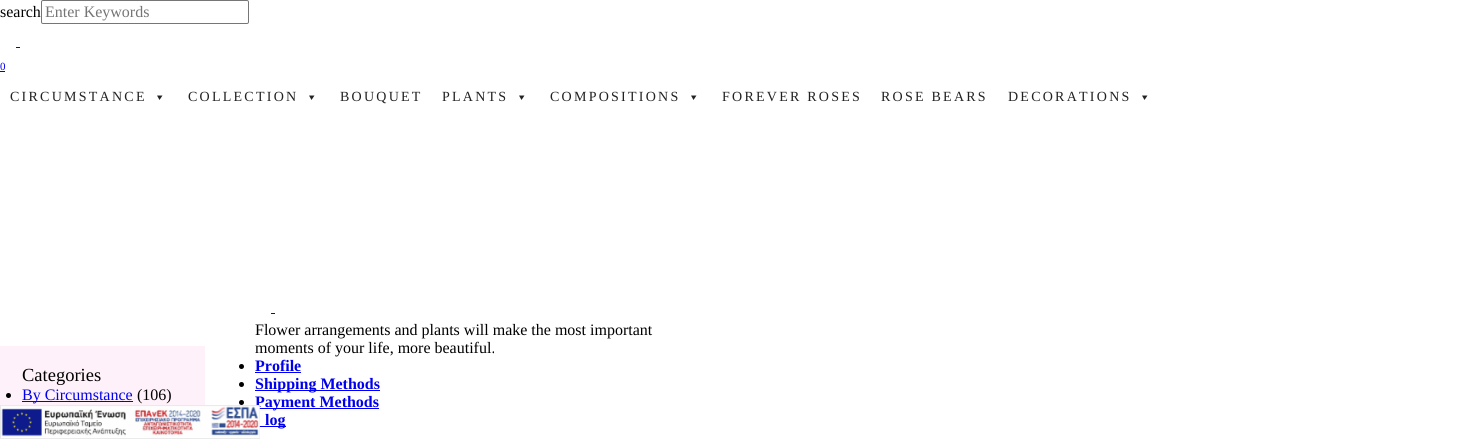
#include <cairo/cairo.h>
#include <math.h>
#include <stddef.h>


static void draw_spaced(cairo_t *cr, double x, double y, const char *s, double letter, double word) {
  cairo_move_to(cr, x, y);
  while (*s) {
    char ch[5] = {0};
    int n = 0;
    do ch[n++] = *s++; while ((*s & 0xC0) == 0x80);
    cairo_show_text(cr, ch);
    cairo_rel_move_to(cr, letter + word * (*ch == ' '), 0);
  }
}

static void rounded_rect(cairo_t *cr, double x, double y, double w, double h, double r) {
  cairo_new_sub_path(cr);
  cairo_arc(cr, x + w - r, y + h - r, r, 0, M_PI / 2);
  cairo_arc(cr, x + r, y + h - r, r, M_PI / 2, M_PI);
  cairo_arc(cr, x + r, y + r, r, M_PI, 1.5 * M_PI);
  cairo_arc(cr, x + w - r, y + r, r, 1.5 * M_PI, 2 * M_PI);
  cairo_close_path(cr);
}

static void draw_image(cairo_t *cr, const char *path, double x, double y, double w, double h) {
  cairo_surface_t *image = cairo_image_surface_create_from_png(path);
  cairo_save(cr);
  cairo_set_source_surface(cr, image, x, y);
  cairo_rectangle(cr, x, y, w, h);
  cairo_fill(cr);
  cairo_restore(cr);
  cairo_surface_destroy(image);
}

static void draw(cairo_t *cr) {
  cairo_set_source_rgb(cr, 1, 1, 1);
  cairo_paint(cr);
  rounded_rect(cr, 41.5, 0.5, 207, 23, 1.5);
  cairo_set_source_rgb(cr, 118 / 255.0, 118 / 255.0, 118 / 255.0);
  cairo_set_line_width(cr, 1);
  cairo_stroke(cr);
  cairo_set_source_rgb(cr, 0, 0, 238 / 255.0);
  cairo_rectangle(cr, 16, 47, 4, 1);
  cairo_fill(cr);
  cairo_rectangle(cr, 0, 71, 5, 1);
  cairo_fill(cr);
  cairo_set_source_rgb(cr, 34 / 255.0, 34 / 255.0, 34 / 255.0);
  cairo_new_path(cr);
  cairo_move_to(cr, 162.5, 95.5);
  cairo_line_to(cr, 159.5, 100);
  cairo_line_to(cr, 157, 95.5);
  cairo_close_path(cr);
  cairo_fill(cr);
  cairo_new_path(cr);
  cairo_move_to(cr, 314.5, 95.5);
  cairo_line_to(cr, 311.5, 100);
  cairo_line_to(cr, 309, 95.5);
  cairo_close_path(cr);
  cairo_fill(cr);
  cairo_new_path(cr);
  cairo_move_to(cr, 524.5, 95.5);
  cairo_line_to(cr, 521.5, 100);
  cairo_line_to(cr, 519, 95.5);
  cairo_close_path(cr);
  cairo_fill(cr);
  cairo_new_path(cr);
  cairo_move_to(cr, 696.5, 95.5);
  cairo_line_to(cr, 693.5, 100);
  cairo_line_to(cr, 691, 95.5);
  cairo_close_path(cr);
  cairo_fill(cr);
  cairo_new_path(cr);
  cairo_move_to(cr, 1147.5, 95.5);
  cairo_line_to(cr, 1144.5, 100);
  cairo_line_to(cr, 1142, 95.5);
  cairo_close_path(cr);
  cairo_fill(cr);
  cairo_set_source_rgb(cr, 1, 241 / 255.0, 249 / 255.0);
  cairo_rectangle(cr, 0, 346, 205, 59);
  cairo_fill(cr);
  cairo_set_source_rgb(cr, 0, 0, 0);
  cairo_arc(cr, 8.5, 395.5, 2.5, 0, 2 * M_PI);
  cairo_fill(cr);
  cairo_set_source_rgb(cr, 0, 0, 238 / 255.0);
  cairo_rectangle(cr, 22, 401, 111, 1);
  cairo_fill(cr);
  cairo_rectangle(cr, 271, 313, 4, 1);
  cairo_fill(cr);
  cairo_set_source_rgb(cr, 0, 0, 0);
  cairo_arc(cr, 241.5, 366.5, 2.5, 0, 2 * M_PI);
  cairo_fill(cr);
  cairo_set_source_rgb(cr, 0, 0, 238 / 255.0);
  cairo_rectangle(cr, 255, 372, 46, 1);
  cairo_fill(cr);
  cairo_set_source_rgb(cr, 0, 0, 0);
  cairo_arc(cr, 241.5, 384.5, 2.5, 0, 2 * M_PI);
  cairo_fill(cr);
  cairo_set_source_rgb(cr, 0, 0, 238 / 255.0);
  cairo_rectangle(cr, 255, 390, 125, 1);
  cairo_fill(cr);
  cairo_set_source_rgb(cr, 0, 0, 0);
  cairo_arc(cr, 241.5, 402.5, 2.5, 0, 2 * M_PI);
  cairo_fill(cr);
  cairo_set_source_rgb(cr, 0, 0, 238 / 255.0);
  cairo_rectangle(cr, 255, 408, 124, 1);
  cairo_fill(cr);
  cairo_rectangle(cr, 255, 426, 31, 1);
  cairo_fill(cr);
  cairo_select_font_face(cr, "Liberation Serif", CAIRO_FONT_SLANT_NORMAL, CAIRO_FONT_WEIGHT_NORMAL);
  cairo_set_font_size(cr, 16);
  cairo_set_source_rgb(cr, 0, 0, 0);
  cairo_move_to(cr, 0, 17);
  cairo_show_text(cr, "search");
  cairo_set_source_rgb(cr, 117 / 255.0, 117 / 255.0, 117 / 255.0);
  cairo_move_to(cr, 45, 17);
  cairo_show_text(cr, "Enter Keywords");
  cairo_set_font_size(cr, 11);
  cairo_set_source_rgb(cr, 0, 0, 238 / 255.0);
  cairo_move_to(cr, 0, 70);
  cairo_show_text(cr, "0");
  cairo_set_font_size(cr, 14);
  cairo_set_source_rgb(cr, 34 / 255.0, 34 / 255.0, 34 / 255.0);
  draw_spaced(cr, 10, 101, "CIRCUMSTANCE", 2.25, 0);
  draw_spaced(cr, 188, 101, "COLLECTION", 2.25, 0);
  draw_spaced(cr, 340, 101, "BOUQUET", 2.25, 0);
  draw_spaced(cr, 442, 101, "PLANTS", 2.25, 0);
  draw_spaced(cr, 550, 101, "COMPOSITIONS", 2.25, 0);
  draw_spaced(cr, 722, 101, "FOREVER ROSES", 2.25, 0);
  draw_spaced(cr, 881, 101, "ROSE BEARS", 2.25, 0);
  draw_spaced(cr, 1008, 101, "DECORATIONS", 2.25, 0);
  cairo_set_font_size(cr, 18.5);
  cairo_set_source_rgb(cr, 0, 0, 0);
  cairo_move_to(cr, 22, 381);
  cairo_show_text(cr, "Categories");
  cairo_set_font_size(cr, 16);
  cairo_set_source_rgb(cr, 0, 0, 238 / 255.0);
  cairo_move_to(cr, 22, 400);
  cairo_show_text(cr, "By Circumstance");
  cairo_set_source_rgb(cr, 0, 0, 0);
  cairo_move_to(cr, 137, 400);
  cairo_show_text(cr, "(106)");
  cairo_move_to(cr, 255, 335);
  cairo_show_text(cr, "Flower arrangements and plants will make the most important");
  cairo_move_to(cr, 255, 353);
  cairo_show_text(cr, "moments of your life, more beautiful.");
  cairo_select_font_face(cr, "Liberation Serif", CAIRO_FONT_SLANT_NORMAL, CAIRO_FONT_WEIGHT_BOLD);
  cairo_set_source_rgb(cr, 0, 0, 238 / 255.0);
  cairo_move_to(cr, 255, 371);
  cairo_show_text(cr, "Profile");
  cairo_move_to(cr, 255, 389);
  cairo_show_text(cr, "Shipping Methods");
  cairo_move_to(cr, 255, 407);
  cairo_show_text(cr, "Payment Methods");
  draw_image(cr, "images/1.png", 0, 405, 260, 34);
  cairo_move_to(cr, 265, 425);
  cairo_show_text(cr, "log");
}

int main(void) {
  cairo_surface_t *surface = cairo_image_surface_create(CAIRO_FORMAT_RGB24, 1484, 439);
  cairo_t *cr = cairo_create(surface);
  cairo_font_options_t *options = cairo_font_options_create();
  cairo_font_options_set_hint_metrics(options, CAIRO_HINT_METRICS_OFF);
  cairo_font_options_set_hint_style(options, CAIRO_HINT_STYLE_NONE);
  cairo_set_font_options(cr, options);
  cairo_set_miter_limit(cr, 4);
  draw(cr);
  cairo_surface_write_to_png(surface, "out.png");
  cairo_font_options_destroy(options);
  cairo_destroy(cr);
  cairo_surface_destroy(surface);
  return 0;
}
